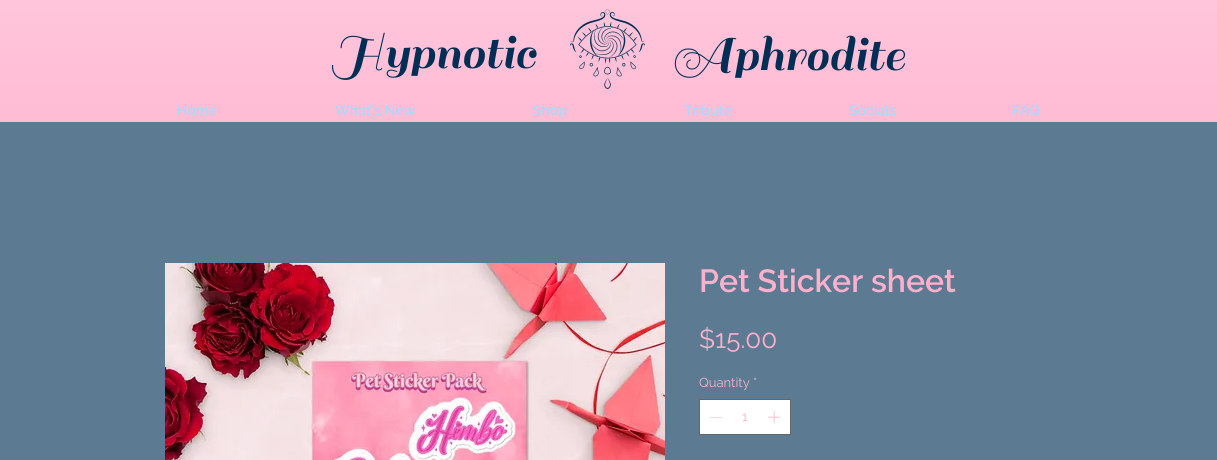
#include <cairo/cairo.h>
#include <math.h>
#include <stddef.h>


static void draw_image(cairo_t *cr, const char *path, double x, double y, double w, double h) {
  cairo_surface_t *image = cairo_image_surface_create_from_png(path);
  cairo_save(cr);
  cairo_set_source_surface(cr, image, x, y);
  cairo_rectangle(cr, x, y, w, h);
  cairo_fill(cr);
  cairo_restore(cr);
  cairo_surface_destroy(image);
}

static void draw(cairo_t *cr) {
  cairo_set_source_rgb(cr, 1, 177 / 255.0, 206 / 255.0);
  cairo_paint(cr);
  draw_image(cr, "images/1.png", 0, 0, 1217, 122);
  draw_image(cr, "images/2.png", 570, 9, 75, 80);
  cairo_set_source_rgb(cr, 92 / 255.0, 122 / 255.0, 146 / 255.0);
  cairo_rectangle(cr, 0, 122, 1217, 338);
  cairo_fill(cr);
  draw_image(cr, "images/3.png", 165, 263, 500, 197);
  cairo_set_source_rgb(cr, 1, 1, 1);
  cairo_rectangle(cr, 699.5, 399.5, 91, 35);
  cairo_fill_preserve(cr);
  cairo_set_source_rgb(cr, 102 / 255.0, 102 / 255.0, 102 / 255.0);
  cairo_set_line_width(cr, 1);
  cairo_stroke(cr);
  cairo_set_source_rgb(cr, 1, 176 / 255.0, 205 / 255.0);
  cairo_set_fill_rule(cr, CAIRO_FILL_RULE_EVEN_ODD);
  cairo_new_path(cr);
  cairo_move_to(cr, 722, 417);
  cairo_line_to(cr, 722, 417.5);
  cairo_line_to(cr, 710, 417.5);
  cairo_line_to(cr, 710, 417);
  cairo_close_path(cr);
  cairo_fill(cr);
  draw_image(cr, "images/4.png", 768, 411, 13, 13);
  cairo_select_font_face(cr, "Sail", CAIRO_FONT_SLANT_NORMAL, CAIRO_FONT_WEIGHT_NORMAL);
  cairo_set_font_size(cr, 53);
  cairo_set_source_rgb(cr, 0, 46 / 255.0, 84 / 255.0);
  cairo_move_to(cr, 331, 68);
  cairo_show_text(cr, "Hypnotic");
  cairo_move_to(cr, 672, 70);
  cairo_show_text(cr, "Aphrodite");
  cairo_select_font_face(cr, "Raleway SemiBold", CAIRO_FONT_SLANT_NORMAL, CAIRO_FONT_WEIGHT_NORMAL);
  cairo_set_font_size(cr, 14);
  cairo_set_source_rgb(cr, 169 / 255.0, 216 / 255.0, 254 / 255.0);
  cairo_move_to(cr, 177, 115);
  cairo_show_text(cr, "Home");
  cairo_move_to(cr, 335, 115);
  cairo_show_text(cr, "What's New");
  cairo_move_to(cr, 533, 115);
  cairo_show_text(cr, "Shop");
  cairo_move_to(cr, 684, 115);
  cairo_show_text(cr, "Tribute");
  cairo_move_to(cr, 849, 115);
  cairo_show_text(cr, "Socials");
  cairo_move_to(cr, 1012, 115);
  cairo_show_text(cr, "FAQ");
  cairo_set_font_size(cr, 32);
  cairo_set_source_rgb(cr, 1, 176 / 255.0, 205 / 255.0);
  cairo_move_to(cr, 699, 292);
  cairo_show_text(cr, "Pet Sticker sheet");
  cairo_select_font_face(cr, "Raleway", CAIRO_FONT_SLANT_NORMAL, CAIRO_FONT_WEIGHT_NORMAL);
  cairo_set_font_size(cr, 26);
  cairo_move_to(cr, 699, 348);
  cairo_show_text(cr, "$15.00");
  cairo_set_font_size(cr, 13);
  cairo_move_to(cr, 699, 387);
  cairo_show_text(cr, "Quantity");
  cairo_move_to(cr, 753, 387);
  cairo_show_text(cr, "*");
  cairo_move_to(cr, 742, 421);
  cairo_show_text(cr, "1");
}

int main(void) {
  cairo_surface_t *surface = cairo_image_surface_create(CAIRO_FORMAT_RGB24, 1217, 460);
  cairo_t *cr = cairo_create(surface);
  cairo_font_options_t *options = cairo_font_options_create();
  cairo_font_options_set_hint_metrics(options, CAIRO_HINT_METRICS_OFF);
  cairo_font_options_set_hint_style(options, CAIRO_HINT_STYLE_NONE);
  cairo_set_font_options(cr, options);
  cairo_set_miter_limit(cr, 4);
  draw(cr);
  cairo_surface_write_to_png(surface, "out.png");
  cairo_font_options_destroy(options);
  cairo_destroy(cr);
  cairo_surface_destroy(surface);
  return 0;
}
